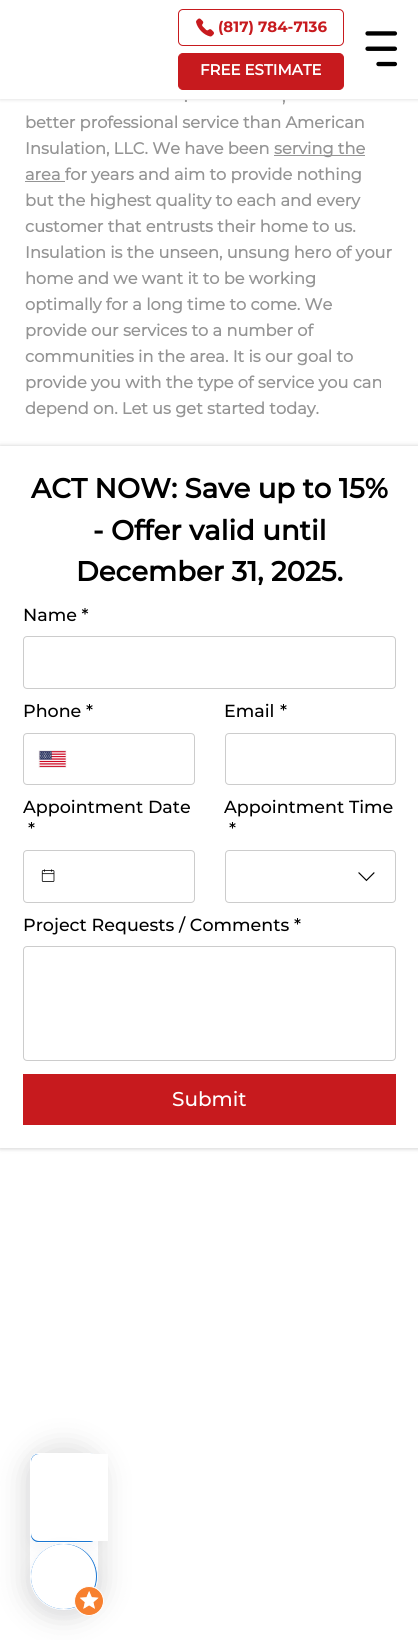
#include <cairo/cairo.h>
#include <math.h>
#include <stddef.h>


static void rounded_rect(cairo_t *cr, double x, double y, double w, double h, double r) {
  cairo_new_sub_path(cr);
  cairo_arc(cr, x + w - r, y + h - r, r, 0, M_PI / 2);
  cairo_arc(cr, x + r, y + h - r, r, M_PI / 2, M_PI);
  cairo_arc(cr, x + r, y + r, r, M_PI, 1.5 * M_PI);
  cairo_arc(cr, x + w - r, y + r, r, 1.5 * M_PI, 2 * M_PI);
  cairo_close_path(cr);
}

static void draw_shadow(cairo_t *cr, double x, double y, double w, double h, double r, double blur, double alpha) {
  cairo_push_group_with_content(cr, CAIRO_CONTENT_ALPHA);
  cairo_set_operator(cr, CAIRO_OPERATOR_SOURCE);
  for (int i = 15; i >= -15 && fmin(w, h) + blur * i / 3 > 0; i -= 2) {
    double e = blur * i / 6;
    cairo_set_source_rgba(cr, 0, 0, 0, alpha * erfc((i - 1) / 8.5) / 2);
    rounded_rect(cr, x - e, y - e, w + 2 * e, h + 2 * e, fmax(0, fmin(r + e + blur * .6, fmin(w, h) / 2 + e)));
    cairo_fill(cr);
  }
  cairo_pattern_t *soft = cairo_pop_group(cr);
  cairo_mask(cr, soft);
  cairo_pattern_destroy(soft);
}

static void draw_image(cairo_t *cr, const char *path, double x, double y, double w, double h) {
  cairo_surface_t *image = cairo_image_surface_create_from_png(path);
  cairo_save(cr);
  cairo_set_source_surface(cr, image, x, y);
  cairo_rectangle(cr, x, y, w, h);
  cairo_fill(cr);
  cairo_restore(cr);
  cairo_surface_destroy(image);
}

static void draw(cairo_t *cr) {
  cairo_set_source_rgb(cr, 1, 1, 1);
  cairo_paint(cr);
  cairo_set_source_rgb(cr, 0, 0, 0);
  draw_shadow(cr, 0, 0, 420, 100, 0, 1.5, 0.1);
  cairo_set_source_rgb(cr, 1, 1, 1);
  cairo_rectangle(cr, 0, 0, 418, 99);
  cairo_fill(cr);
  rounded_rect(cr, 178.5, 9.5, 165, 36, 4.5);
  cairo_set_source_rgb(cr, 199 / 255.0, 26 / 255.0, 30 / 255.0);
  cairo_set_line_width(cr, 1);
  cairo_stroke(cr);
  draw_image(cr, "images/1.png", 196, 18, 18, 19);
  rounded_rect(cr, 178.5, 53.5, 165, 36, 4.5);
  cairo_fill_preserve(cr);
  cairo_stroke(cr);
  draw_image(cr, "images/2.png", 365, 31, 33, 36);
  cairo_set_source_rgb(cr, 148 / 255.0, 148 / 255.0, 148 / 255.0);
  cairo_rectangle(cr, 274, 155, 91, 1);
  cairo_fill(cr);
  cairo_rectangle(cr, 25, 181, 40, 1);
  cairo_fill(cr);
  cairo_set_source_rgb(cr, 0, 0, 0);
  draw_shadow(cr, 0, 446, 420, 703, 0, 1.5, 0.1);
  draw_shadow(cr, 0, 446, 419, 702, 0, 3, 0.1);
  cairo_set_source_rgb(cr, 1, 1, 1);
  cairo_rectangle(cr, 0, 446, 418, 702);
  cairo_fill(cr);
  rounded_rect(cr, 23.5, 636.5, 372, 52, 3.5);
  cairo_set_source_rgb(cr, 204 / 255.0, 204 / 255.0, 204 / 255.0);
  cairo_stroke(cr);
  rounded_rect(cr, 23.5, 733.5, 171, 51, 3.5);
  cairo_stroke(cr);
  draw_image(cr, "images/3.png", 38, 750, 29, 18);
  rounded_rect(cr, 225.5, 733.5, 170, 51, 3.5);
  cairo_stroke(cr);
  rounded_rect(cr, 23.5, 850.5, 171, 52, 3.5);
  cairo_stroke(cr);
  draw_image(cr, "images/4.png", 41, 869, 14, 13);
  rounded_rect(cr, 225.5, 850.5, 170, 52, 3.5);
  cairo_stroke(cr);
  draw_image(cr, "images/5.png", 358, 872, 17, 10);
  rounded_rect(cr, 23.5, 946.5, 372, 114, 3.5);
  cairo_stroke(cr);
  cairo_set_source_rgb(cr, 199 / 255.0, 26 / 255.0, 30 / 255.0);
  cairo_rectangle(cr, 23, 1074, 373, 51);
  cairo_fill(cr);
  cairo_save(cr);
  cairo_set_fill_rule(cr, CAIRO_FILL_RULE_EVEN_ODD);
  cairo_new_path(cr);
  cairo_move_to(cr, 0, 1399);
  cairo_line_to(cr, 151, 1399);
  cairo_line_to(cr, 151, 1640);
  cairo_line_to(cr, 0, 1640);
  cairo_close_path(cr);
  cairo_move_to(cr, 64, 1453);
  cairo_curve_to(cr, 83, 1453, 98, 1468, 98, 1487);
  cairo_line_to(cr, 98, 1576);
  cairo_curve_to(cr, 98, 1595, 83, 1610, 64, 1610);
  cairo_curve_to(cr, 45, 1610, 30, 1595, 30, 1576);
  cairo_line_to(cr, 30, 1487);
  cairo_curve_to(cr, 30, 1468, 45, 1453, 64, 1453);
  cairo_close_path(cr);
  cairo_clip(cr);
  cairo_set_source_rgb(cr, 0, 0, 0);
  draw_shadow(cr, 23, 1445, 82, 173, 41, 15, 0.12);
  cairo_restore(cr);
  cairo_set_source_rgb(cr, 76 / 255.0, 76 / 255.0, 109 / 255.0);
  draw_shadow(cr, 30, 1458, 68, 90, 8, 7.5, 0.06);
  cairo_set_source_rgb(cr, 25 / 255.0, 118 / 255.0, 210 / 255.0);
  rounded_rect(cr, 30.5, 1453.5, 67, 89, 7.5);
  cairo_fill_preserve(cr);
  cairo_set_source_rgb(cr, 1, 1, 1);
  cairo_stroke(cr);
  cairo_new_path(cr);
  cairo_move_to(cr, 39, 1454);
  cairo_line_to(cr, 108, 1454);
  cairo_line_to(cr, 108, 1541);
  cairo_line_to(cr, 39, 1541);
  cairo_curve_to(cr, 34.5, 1541, 31, 1537.5, 31, 1533);
  cairo_line_to(cr, 31, 1462);
  cairo_curve_to(cr, 31, 1457.5, 34.5, 1454, 39, 1454);
  cairo_close_path(cr);
  cairo_fill(cr);
  cairo_set_source_rgb(cr, 76 / 255.0, 76 / 255.0, 109 / 255.0);
  draw_shadow(cr, 30, 1548, 68, 67, 33.5, 7.5, 0.06);
  cairo_set_source_rgb(cr, 25 / 255.0, 118 / 255.0, 210 / 255.0);
  rounded_rect(cr, 30.5, 1543.5, 67, 66, 33);
  cairo_fill_preserve(cr);
  cairo_set_source_rgb(cr, 1, 1, 1);
  cairo_stroke(cr);
  cairo_arc(cr, 63.5, 1576.5, 32.5, 0, 2 * M_PI);
  cairo_fill(cr);
  cairo_set_source_rgb(cr, 247 / 255.0, 128 / 255.0, 47 / 255.0);
  cairo_arc(cr, 89, 1601, 14.5, 0, 2 * M_PI);
  cairo_fill_preserve(cr);
  cairo_set_source_rgb(cr, 1, 1, 1);
  cairo_stroke(cr);
  draw_image(cr, "images/7.png", 80, 1591, 19, 18);
  draw_image(cr, "images/6.png", 79, 1591, 20, 18);
  cairo_select_font_face(cr, "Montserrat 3", CAIRO_FONT_SLANT_NORMAL, CAIRO_FONT_WEIGHT_BOLD);
  cairo_set_font_size(cr, 15);
  cairo_set_source_rgb(cr, 199 / 255.0, 26 / 255.0, 30 / 255.0);
  cairo_move_to(cr, 218, 32);
  cairo_show_text(cr, "(817) 784-7136");
  cairo_select_font_face(cr, "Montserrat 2", CAIRO_FONT_SLANT_NORMAL, CAIRO_FONT_WEIGHT_BOLD);
  cairo_set_source_rgb(cr, 1, 1, 1);
  cairo_move_to(cr, 200, 75);
  cairo_show_text(cr, "FREE ESTIMATE");
  cairo_select_font_face(cr, "Montserrat", CAIRO_FONT_SLANT_NORMAL, CAIRO_FONT_WEIGHT_BOLD);
  cairo_set_font_size(cr, 16.25);
  cairo_set_source_rgb(cr, 148 / 255.0, 148 / 255.0, 148 / 255.0);
  cairo_move_to(cr, 184, 102);
  cairo_show_text(cr, ".");
  cairo_move_to(cr, 282, 102);
  cairo_show_text(cr, ",");
  cairo_move_to(cr, 25, 128);
  cairo_show_text(cr, "better professional service than American");
  cairo_move_to(cr, 25, 154);
  cairo_show_text(cr, "Insulation, LLC. We have been");
  cairo_move_to(cr, 274, 154);
  cairo_show_text(cr, "serving the");
  cairo_move_to(cr, 25, 180);
  cairo_show_text(cr, "area for years and aim to provide nothing");
  cairo_move_to(cr, 25, 206);
  cairo_show_text(cr, "but the highest quality to each and every");
  cairo_move_to(cr, 25, 232);
  cairo_show_text(cr, "customer that entrusts their home to us.");
  cairo_move_to(cr, 25, 258);
  cairo_show_text(cr, "Insulation is the unseen, unsung hero of your");
  cairo_move_to(cr, 25, 284);
  cairo_show_text(cr, "home and we want it to be working");
  cairo_move_to(cr, 25, 310);
  cairo_show_text(cr, "optimally for a long time to come. We");
  cairo_move_to(cr, 25, 336);
  cairo_show_text(cr, "provide our services to a number of");
  cairo_move_to(cr, 25, 362);
  cairo_show_text(cr, "communities in the area. It is our goal to");
  cairo_move_to(cr, 25, 388);
  cairo_show_text(cr, "provide you with the type of service you can");
  cairo_move_to(cr, 25, 414);
  cairo_show_text(cr, "depend on. Let us get started today.");
  cairo_select_font_face(cr, "Montserrat 2", CAIRO_FONT_SLANT_NORMAL, CAIRO_FONT_WEIGHT_BOLD);
  cairo_set_font_size(cr, 27.5);
  cairo_set_source_rgb(cr, 0, 0, 0);
  cairo_move_to(cr, 31, 498);
  cairo_show_text(cr, "ACT NOW: Save up to 15%");
  cairo_move_to(cr, 93, 540);
  cairo_show_text(cr, "- Offer valid until");
  cairo_move_to(cr, 76, 581);
  cairo_show_text(cr, "December 31, 2025.");
  cairo_select_font_face(cr, "Montserrat Medium", CAIRO_FONT_SLANT_NORMAL, CAIRO_FONT_WEIGHT_NORMAL);
  cairo_set_font_size(cr, 17.5);
  cairo_move_to(cr, 23, 621);
  cairo_show_text(cr, "Name *");
  cairo_move_to(cr, 23, 717);
  cairo_show_text(cr, "Phone");
  cairo_move_to(cr, 86, 717);
  cairo_show_text(cr, "*");
  cairo_move_to(cr, 224, 717);
  cairo_show_text(cr, "Email");
  cairo_move_to(cr, 280, 717);
  cairo_show_text(cr, "*");
  cairo_move_to(cr, 23, 813);
  cairo_show_text(cr, "Appointment Date");
  cairo_move_to(cr, 28, 835);
  cairo_show_text(cr, "*");
  cairo_move_to(cr, 224, 813);
  cairo_show_text(cr, "Appointment Time");
  cairo_move_to(cr, 229, 835);
  cairo_show_text(cr, "*");
  cairo_move_to(cr, 23, 931);
  cairo_show_text(cr, "Project Requests / Comments *");
  cairo_set_font_size(cr, 20);
  cairo_set_source_rgb(cr, 1, 1, 1);
  cairo_move_to(cr, 172, 1106);
  cairo_show_text(cr, "Submit");
}

int main(void) {
  cairo_surface_t *surface = cairo_image_surface_create(CAIRO_FORMAT_RGB24, 418, 1640);
  cairo_t *cr = cairo_create(surface);
  cairo_font_options_t *options = cairo_font_options_create();
  cairo_font_options_set_hint_metrics(options, CAIRO_HINT_METRICS_OFF);
  cairo_font_options_set_hint_style(options, CAIRO_HINT_STYLE_NONE);
  cairo_set_font_options(cr, options);
  cairo_set_miter_limit(cr, 4);
  draw(cr);
  cairo_surface_write_to_png(surface, "out.png");
  cairo_font_options_destroy(options);
  cairo_destroy(cr);
  cairo_surface_destroy(surface);
  return 0;
}
